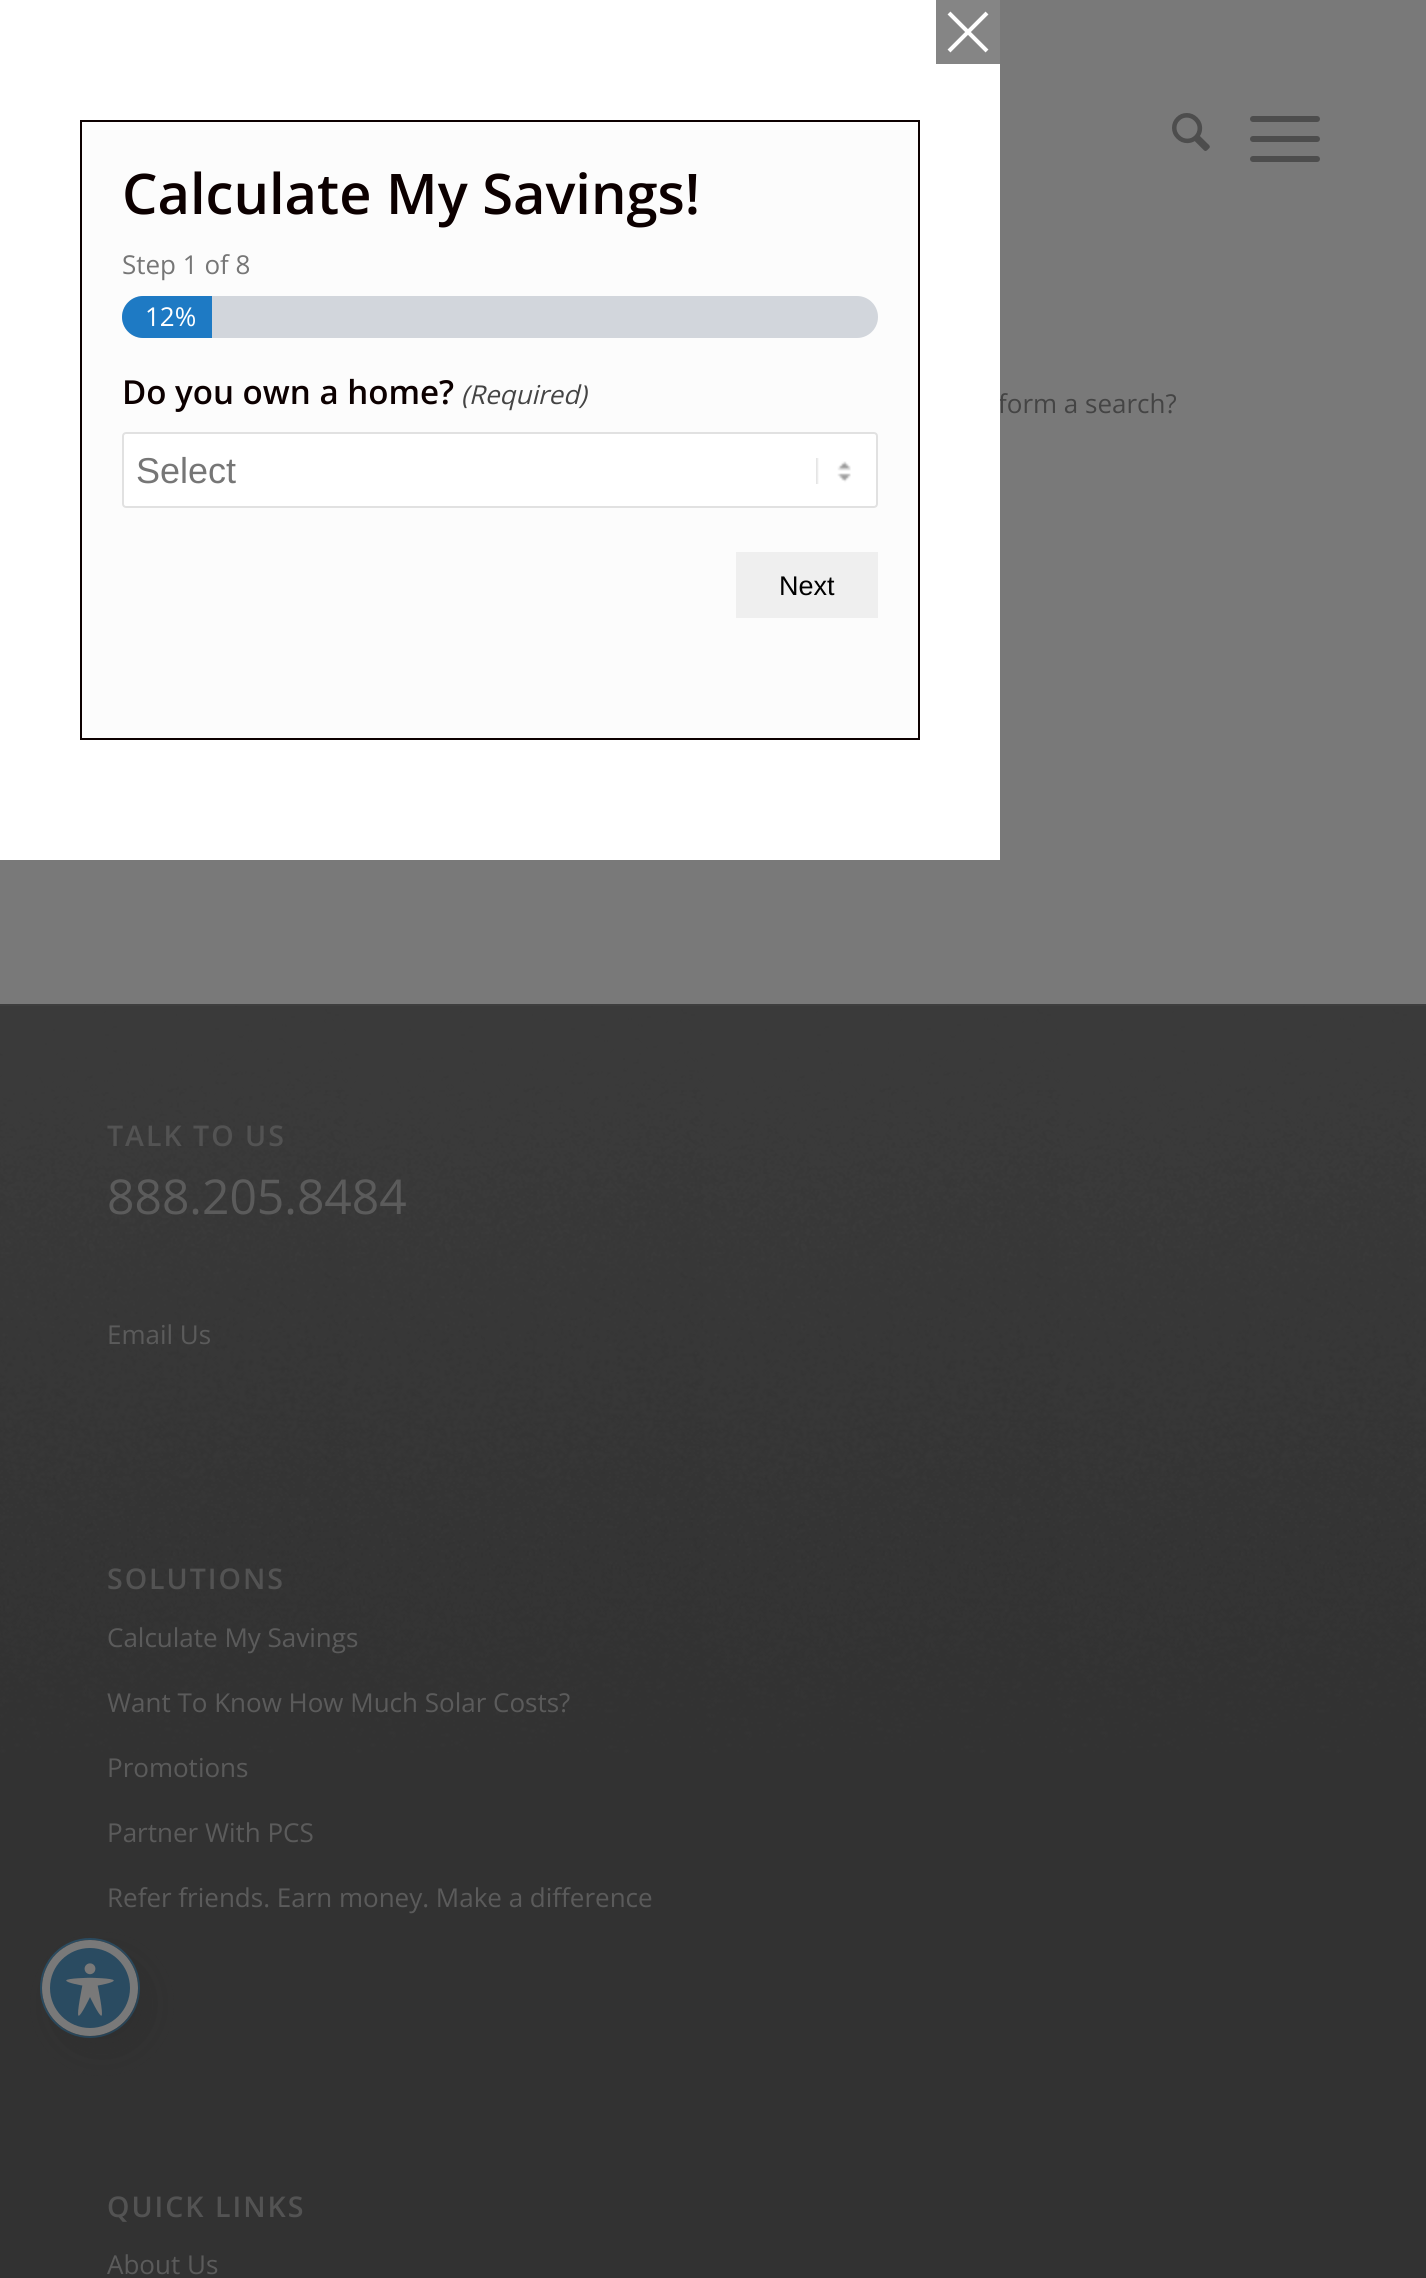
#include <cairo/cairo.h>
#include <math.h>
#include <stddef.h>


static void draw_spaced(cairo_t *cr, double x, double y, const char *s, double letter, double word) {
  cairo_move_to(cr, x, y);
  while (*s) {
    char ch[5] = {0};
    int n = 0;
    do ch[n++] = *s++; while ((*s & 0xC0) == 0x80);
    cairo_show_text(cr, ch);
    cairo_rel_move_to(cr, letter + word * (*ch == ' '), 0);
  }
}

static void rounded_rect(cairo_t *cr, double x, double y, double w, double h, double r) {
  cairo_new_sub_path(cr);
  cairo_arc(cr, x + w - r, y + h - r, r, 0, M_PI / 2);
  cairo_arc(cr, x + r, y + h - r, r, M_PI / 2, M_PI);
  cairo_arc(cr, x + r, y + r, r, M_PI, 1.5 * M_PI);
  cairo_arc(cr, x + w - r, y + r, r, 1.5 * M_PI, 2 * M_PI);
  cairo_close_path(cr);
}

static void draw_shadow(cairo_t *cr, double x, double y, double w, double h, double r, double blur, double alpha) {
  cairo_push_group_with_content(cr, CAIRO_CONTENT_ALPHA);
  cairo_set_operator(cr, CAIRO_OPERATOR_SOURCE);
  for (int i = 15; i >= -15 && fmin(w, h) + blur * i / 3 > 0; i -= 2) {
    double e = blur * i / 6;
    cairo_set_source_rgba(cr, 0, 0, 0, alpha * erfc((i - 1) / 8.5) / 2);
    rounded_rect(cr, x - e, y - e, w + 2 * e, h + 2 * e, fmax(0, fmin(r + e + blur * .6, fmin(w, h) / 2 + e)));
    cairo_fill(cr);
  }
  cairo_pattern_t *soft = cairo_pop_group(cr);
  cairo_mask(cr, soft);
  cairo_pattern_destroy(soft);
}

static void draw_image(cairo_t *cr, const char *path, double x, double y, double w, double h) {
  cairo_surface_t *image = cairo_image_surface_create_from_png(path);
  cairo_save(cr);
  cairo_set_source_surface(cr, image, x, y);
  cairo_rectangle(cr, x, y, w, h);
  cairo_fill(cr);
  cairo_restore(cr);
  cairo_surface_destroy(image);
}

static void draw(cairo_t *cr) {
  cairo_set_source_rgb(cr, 121 / 255.0, 121 / 255.0, 121 / 255.0);
  cairo_paint(cr);
  cairo_set_source_rgb(cr, 50 / 255.0, 50 / 255.0, 50 / 255.0);
  cairo_rectangle(cr, 0, 1006, 1426, 1272);
  cairo_fill(cr);
  cairo_arc(cr, 90, 1988, 49, 0, 2 * M_PI);
  cairo_set_source_rgb(cr, 42 / 255.0, 75 / 255.0, 97 / 255.0);
  cairo_stroke(cr);
  cairo_set_source_rgb(cr, 32 / 255.0, 32 / 255.0, 32 / 255.0);
  draw_shadow(cr, 54, 1956, 96, 96, 48, 16, 0.2);
  cairo_set_source_rgb(cr, 42 / 255.0, 75 / 255.0, 97 / 255.0);
  cairo_arc(cr, 90, 1988, 44, 0, 2 * M_PI);
  cairo_fill_preserve(cr);
  cairo_set_source_rgb(cr, 121 / 255.0, 121 / 255.0, 121 / 255.0);
  cairo_set_line_width(cr, 8);
  cairo_stroke(cr);
  draw_image(cr, "images/3.png", 66, 1963, 48, 53);
  draw_image(cr, "images/4.png", 1172, 113, 38, 38);
  cairo_set_source_rgb(cr, 77 / 255.0, 77 / 255.0, 77 / 255.0);
  rounded_rect(cr, 1250, 136, 70, 6, 3);
  cairo_fill(cr);
  rounded_rect(cr, 1250, 116, 70, 6, 3);
  cairo_fill(cr);
  rounded_rect(cr, 1250, 156, 70, 6, 3);
  cairo_fill(cr);
  draw_image(cr, "images/5.png", 0, 1006, 1426, 747);
  cairo_set_source_rgb(cr, 62 / 255.0, 62 / 255.0, 62 / 255.0);
  cairo_rectangle(cr, 0, 1004, 1426, 2);
  cairo_fill(cr);
  cairo_select_font_face(cr, "Open Sans", CAIRO_FONT_SLANT_NORMAL, CAIRO_FONT_WEIGHT_NORMAL);
  cairo_set_font_size(cr, 26);
  cairo_set_source_rgb(cr, 68 / 255.0, 68 / 255.0, 68 / 255.0);
  cairo_move_to(cr, 998, 413);
  cairo_show_text(cr, "form a search?");
  cairo_set_source_rgb(cr, 1, 1, 1);
  cairo_rectangle(cr, 0, 0, 1000, 860);
  cairo_fill(cr);
  cairo_set_source_rgb(cr, 252 / 255.0, 252 / 255.0, 252 / 255.0);
  cairo_rectangle(cr, 81, 121, 838, 618);
  cairo_fill_preserve(cr);
  cairo_set_source_rgb(cr, 12 / 255.0, 0, 0);
  cairo_set_line_width(cr, 2);
  cairo_stroke(cr);
  cairo_set_source_rgb(cr, 239 / 255.0, 239 / 255.0, 239 / 255.0);
  cairo_rectangle(cr, 736, 552, 142, 66);
  cairo_fill(cr);
  cairo_select_font_face(cr, "Liberation Sans", CAIRO_FONT_SLANT_NORMAL, CAIRO_FONT_WEIGHT_NORMAL);
  cairo_set_font_size(cr, 27);
  cairo_set_source_rgb(cr, 0, 0, 0);
  cairo_move_to(cr, 779, 595);
  cairo_show_text(cr, "Next");
  cairo_set_source_rgb(cr, 1, 1, 1);
  rounded_rect(cr, 122, 432, 756, 76, 4);
  cairo_fill(cr);
  draw_image(cr, "images/2.png", 816, 458, 35, 26);
  rounded_rect(cr, 123, 433, 754, 74, 3);
  cairo_set_source_rgb(cr, 225 / 255.0, 225 / 255.0, 225 / 255.0);
  cairo_stroke(cr);
  cairo_set_font_size(cr, 36);
  cairo_set_source_rgb(cr, 118 / 255.0, 118 / 255.0, 118 / 255.0);
  cairo_move_to(cr, 136, 483);
  cairo_show_text(cr, "Select");
  cairo_select_font_face(cr, "Open Sans", CAIRO_FONT_SLANT_ITALIC, CAIRO_FONT_WEIGHT_NORMAL);
  cairo_set_font_size(cr, 26);
  cairo_set_source_rgb(cr, 68 / 255.0, 68 / 255.0, 68 / 255.0);
  cairo_move_to(cr, 461, 404);
  cairo_show_text(cr, "(Required)");
  cairo_select_font_face(cr, "Open Sans SemiBold", CAIRO_FONT_SLANT_NORMAL, CAIRO_FONT_WEIGHT_NORMAL);
  cairo_set_font_size(cr, 33.1);
  cairo_set_source_rgb(cr, 12 / 255.0, 0, 0);
  cairo_move_to(cr, 122, 404);
  cairo_show_text(cr, "Do you own a home?");
  cairo_set_source_rgb(cr, 210 / 255.0, 214 / 255.0, 220 / 255.0);
  rounded_rect(cr, 122, 296, 756, 42, 21);
  cairo_fill(cr);
  cairo_set_source_rgb(cr, 30 / 255.0, 122 / 255.0, 196 / 255.0);
  cairo_new_path(cr);
  cairo_move_to(cr, 143, 296);
  cairo_line_to(cr, 212, 296);
  cairo_line_to(cr, 212, 338);
  cairo_line_to(cr, 143, 338);
  cairo_curve_to(cr, 131.5, 338, 122, 328.5, 122, 317);
  cairo_curve_to(cr, 122, 305.5, 131.5, 296, 143, 296);
  cairo_close_path(cr);
  cairo_fill(cr);
  cairo_select_font_face(cr, "Open Sans", CAIRO_FONT_SLANT_NORMAL, CAIRO_FONT_WEIGHT_NORMAL);
  cairo_set_font_size(cr, 26);
  cairo_set_source_rgb(cr, 1, 1, 1);
  cairo_move_to(cr, 145, 326);
  cairo_show_text(cr, "12%");
  cairo_set_source_rgb(cr, 118 / 255.0, 118 / 255.0, 118 / 255.0);
  cairo_move_to(cr, 122, 274);
  cairo_show_text(cr, "Step 1 of 8");
  cairo_set_source_rgb(cr, 133 / 255.0, 133 / 255.0, 133 / 255.0);
  cairo_rectangle(cr, 936, 0, 64, 64);
  cairo_fill(cr);
  draw_image(cr, "images/1.png", 947, 11, 42, 42);
  cairo_select_font_face(cr, "Open Sans SemiBold", CAIRO_FONT_SLANT_NORMAL, CAIRO_FONT_WEIGHT_NORMAL);
  cairo_set_font_size(cr, 56);
  cairo_set_source_rgb(cr, 12 / 255.0, 0, 0);
  cairo_move_to(cr, 122, 214);
  cairo_show_text(cr, "Calculate My Savings!");
  cairo_set_font_size(cr, 28.5);
  cairo_set_source_rgb(cr, 83 / 255.0, 83 / 255.0, 83 / 255.0);
  draw_spaced(cr, 107, 1146, "TALK TO US", 2, 0);
  cairo_select_font_face(cr, "Open Sans", CAIRO_FONT_SLANT_NORMAL, CAIRO_FONT_WEIGHT_NORMAL);
  cairo_set_font_size(cr, 48);
  cairo_set_source_rgb(cr, 91 / 255.0, 91 / 255.0, 91 / 255.0);
  cairo_move_to(cr, 107, 1214);
  cairo_show_text(cr, "888.205.8484");
  cairo_set_font_size(cr, 26);
  cairo_move_to(cr, 107, 1344);
  cairo_show_text(cr, "Email Us");
  cairo_select_font_face(cr, "Open Sans SemiBold", CAIRO_FONT_SLANT_NORMAL, CAIRO_FONT_WEIGHT_NORMAL);
  cairo_set_font_size(cr, 28.5);
  cairo_set_source_rgb(cr, 83 / 255.0, 83 / 255.0, 83 / 255.0);
  draw_spaced(cr, 107, 1589, "SOLUTIONS", 2, 0);
  cairo_select_font_face(cr, "Open Sans", CAIRO_FONT_SLANT_NORMAL, CAIRO_FONT_WEIGHT_NORMAL);
  cairo_set_font_size(cr, 26);
  cairo_set_source_rgb(cr, 91 / 255.0, 91 / 255.0, 91 / 255.0);
  cairo_move_to(cr, 107, 1647);
  cairo_show_text(cr, "Calculate My Savings");
  cairo_move_to(cr, 107, 1712);
  cairo_show_text(cr, "Want To Know How Much Solar Costs?");
  cairo_move_to(cr, 107, 1777);
  cairo_show_text(cr, "Promotions");
  cairo_move_to(cr, 107, 1842);
  cairo_show_text(cr, "Partner With PCS");
  cairo_move_to(cr, 107, 1907);
  cairo_show_text(cr, "Refer friends. Earn money. Make a difference");
  cairo_select_font_face(cr, "Open Sans SemiBold", CAIRO_FONT_SLANT_NORMAL, CAIRO_FONT_WEIGHT_NORMAL);
  cairo_set_font_size(cr, 28.5);
  cairo_set_source_rgb(cr, 83 / 255.0, 83 / 255.0, 83 / 255.0);
  draw_spaced(cr, 107, 2217, "QUICK LINKS", 2, 0);
  cairo_select_font_face(cr, "Open Sans", CAIRO_FONT_SLANT_NORMAL, CAIRO_FONT_WEIGHT_NORMAL);
  cairo_set_font_size(cr, 26);
  cairo_set_source_rgb(cr, 91 / 255.0, 91 / 255.0, 91 / 255.0);
  cairo_move_to(cr, 107, 2274);
  cairo_show_text(cr, "About Us");
}

int main(void) {
  cairo_surface_t *surface = cairo_image_surface_create(CAIRO_FORMAT_RGB24, 1426, 2278);
  cairo_t *cr = cairo_create(surface);
  cairo_font_options_t *options = cairo_font_options_create();
  cairo_font_options_set_hint_metrics(options, CAIRO_HINT_METRICS_OFF);
  cairo_font_options_set_hint_style(options, CAIRO_HINT_STYLE_NONE);
  cairo_set_font_options(cr, options);
  cairo_set_miter_limit(cr, 4);
  draw(cr);
  cairo_surface_write_to_png(surface, "out.png");
  cairo_font_options_destroy(options);
  cairo_destroy(cr);
  cairo_surface_destroy(surface);
  return 0;
}
